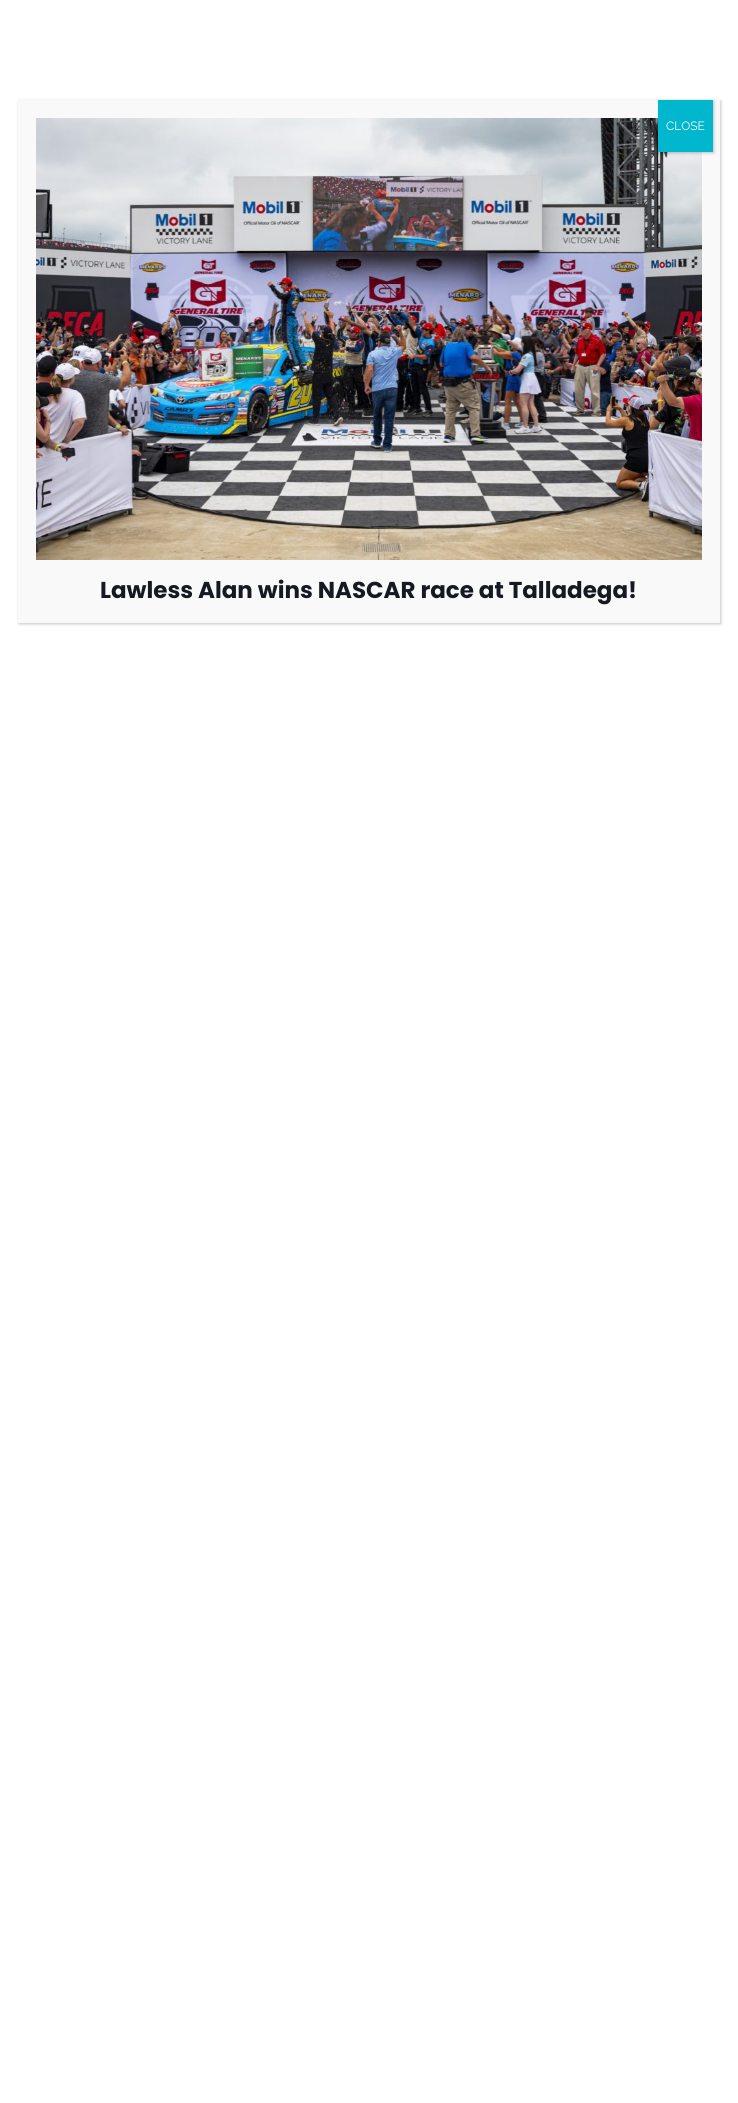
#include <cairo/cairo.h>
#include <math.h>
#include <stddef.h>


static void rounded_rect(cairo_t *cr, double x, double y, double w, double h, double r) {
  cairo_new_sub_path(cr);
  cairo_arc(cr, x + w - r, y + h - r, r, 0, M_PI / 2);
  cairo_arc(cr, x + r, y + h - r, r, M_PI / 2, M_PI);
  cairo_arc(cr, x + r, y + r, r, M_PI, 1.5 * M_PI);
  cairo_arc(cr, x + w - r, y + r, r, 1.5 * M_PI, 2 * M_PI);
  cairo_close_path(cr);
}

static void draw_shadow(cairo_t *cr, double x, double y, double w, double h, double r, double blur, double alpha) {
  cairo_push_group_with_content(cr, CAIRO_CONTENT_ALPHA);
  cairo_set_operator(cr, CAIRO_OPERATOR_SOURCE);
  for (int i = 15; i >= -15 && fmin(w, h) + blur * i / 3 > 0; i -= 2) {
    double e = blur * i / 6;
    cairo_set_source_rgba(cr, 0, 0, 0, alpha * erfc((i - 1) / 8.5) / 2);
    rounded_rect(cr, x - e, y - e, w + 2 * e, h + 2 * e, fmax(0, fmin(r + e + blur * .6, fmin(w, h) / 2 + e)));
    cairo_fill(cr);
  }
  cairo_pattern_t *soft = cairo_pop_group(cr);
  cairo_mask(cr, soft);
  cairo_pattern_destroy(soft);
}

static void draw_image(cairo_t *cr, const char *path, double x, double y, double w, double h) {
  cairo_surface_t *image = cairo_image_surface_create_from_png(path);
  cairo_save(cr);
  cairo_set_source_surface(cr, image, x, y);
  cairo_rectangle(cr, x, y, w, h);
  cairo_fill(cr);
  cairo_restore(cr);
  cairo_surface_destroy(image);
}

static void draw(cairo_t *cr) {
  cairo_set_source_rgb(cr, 1, 1, 1);
  cairo_paint(cr);
  cairo_set_source_rgb(cr, 2 / 255.0, 2 / 255.0, 2 / 255.0);
  draw_shadow(cr, 19, 101, 702, 523, 0, 1.5, 0.23);
  cairo_set_source_rgb(cr, 249 / 255.0, 249 / 255.0, 249 / 255.0);
  cairo_rectangle(cr, 18, 100, 702, 523);
  cairo_fill(cr);
  draw_image(cr, "images/1.png", 36, 118, 666, 442);
  cairo_set_source_rgb(cr, 2 / 255.0, 2 / 255.0, 2 / 255.0);
  draw_shadow(cr, 659, 101, 55, 52, 0, 1.5, 0.23);
  cairo_set_source_rgb(cr, 0, 183 / 255.0, 205 / 255.0);
  cairo_rectangle(cr, 658, 100, 55, 52);
  cairo_fill(cr);
  cairo_select_font_face(cr, "Raleway", CAIRO_FONT_SLANT_NORMAL, CAIRO_FONT_WEIGHT_NORMAL);
  cairo_set_font_size(cr, 12);
  cairo_set_source_rgb(cr, 1, 1, 1);
  cairo_move_to(cr, 666, 130);
  cairo_show_text(cr, "CLOSE");
  cairo_select_font_face(cr, "Poppins", CAIRO_FONT_SLANT_NORMAL, CAIRO_FONT_WEIGHT_BOLD);
  cairo_set_font_size(cr, 23);
  cairo_set_source_rgb(cr, 22 / 255.0, 25 / 255.0, 34 / 255.0);
  cairo_move_to(cr, 100, 598);
  cairo_show_text(cr, "Lawless Alan wins NASCAR race at Talladega!");
}

int main(void) {
  cairo_surface_t *surface = cairo_image_surface_create(CAIRO_FORMAT_RGB24, 738, 2103);
  cairo_t *cr = cairo_create(surface);
  cairo_font_options_t *options = cairo_font_options_create();
  cairo_font_options_set_hint_metrics(options, CAIRO_HINT_METRICS_OFF);
  cairo_font_options_set_hint_style(options, CAIRO_HINT_STYLE_NONE);
  cairo_set_font_options(cr, options);
  cairo_set_miter_limit(cr, 4);
  draw(cr);
  cairo_surface_write_to_png(surface, "out.png");
  cairo_font_options_destroy(options);
  cairo_destroy(cr);
  cairo_surface_destroy(surface);
  return 0;
}
